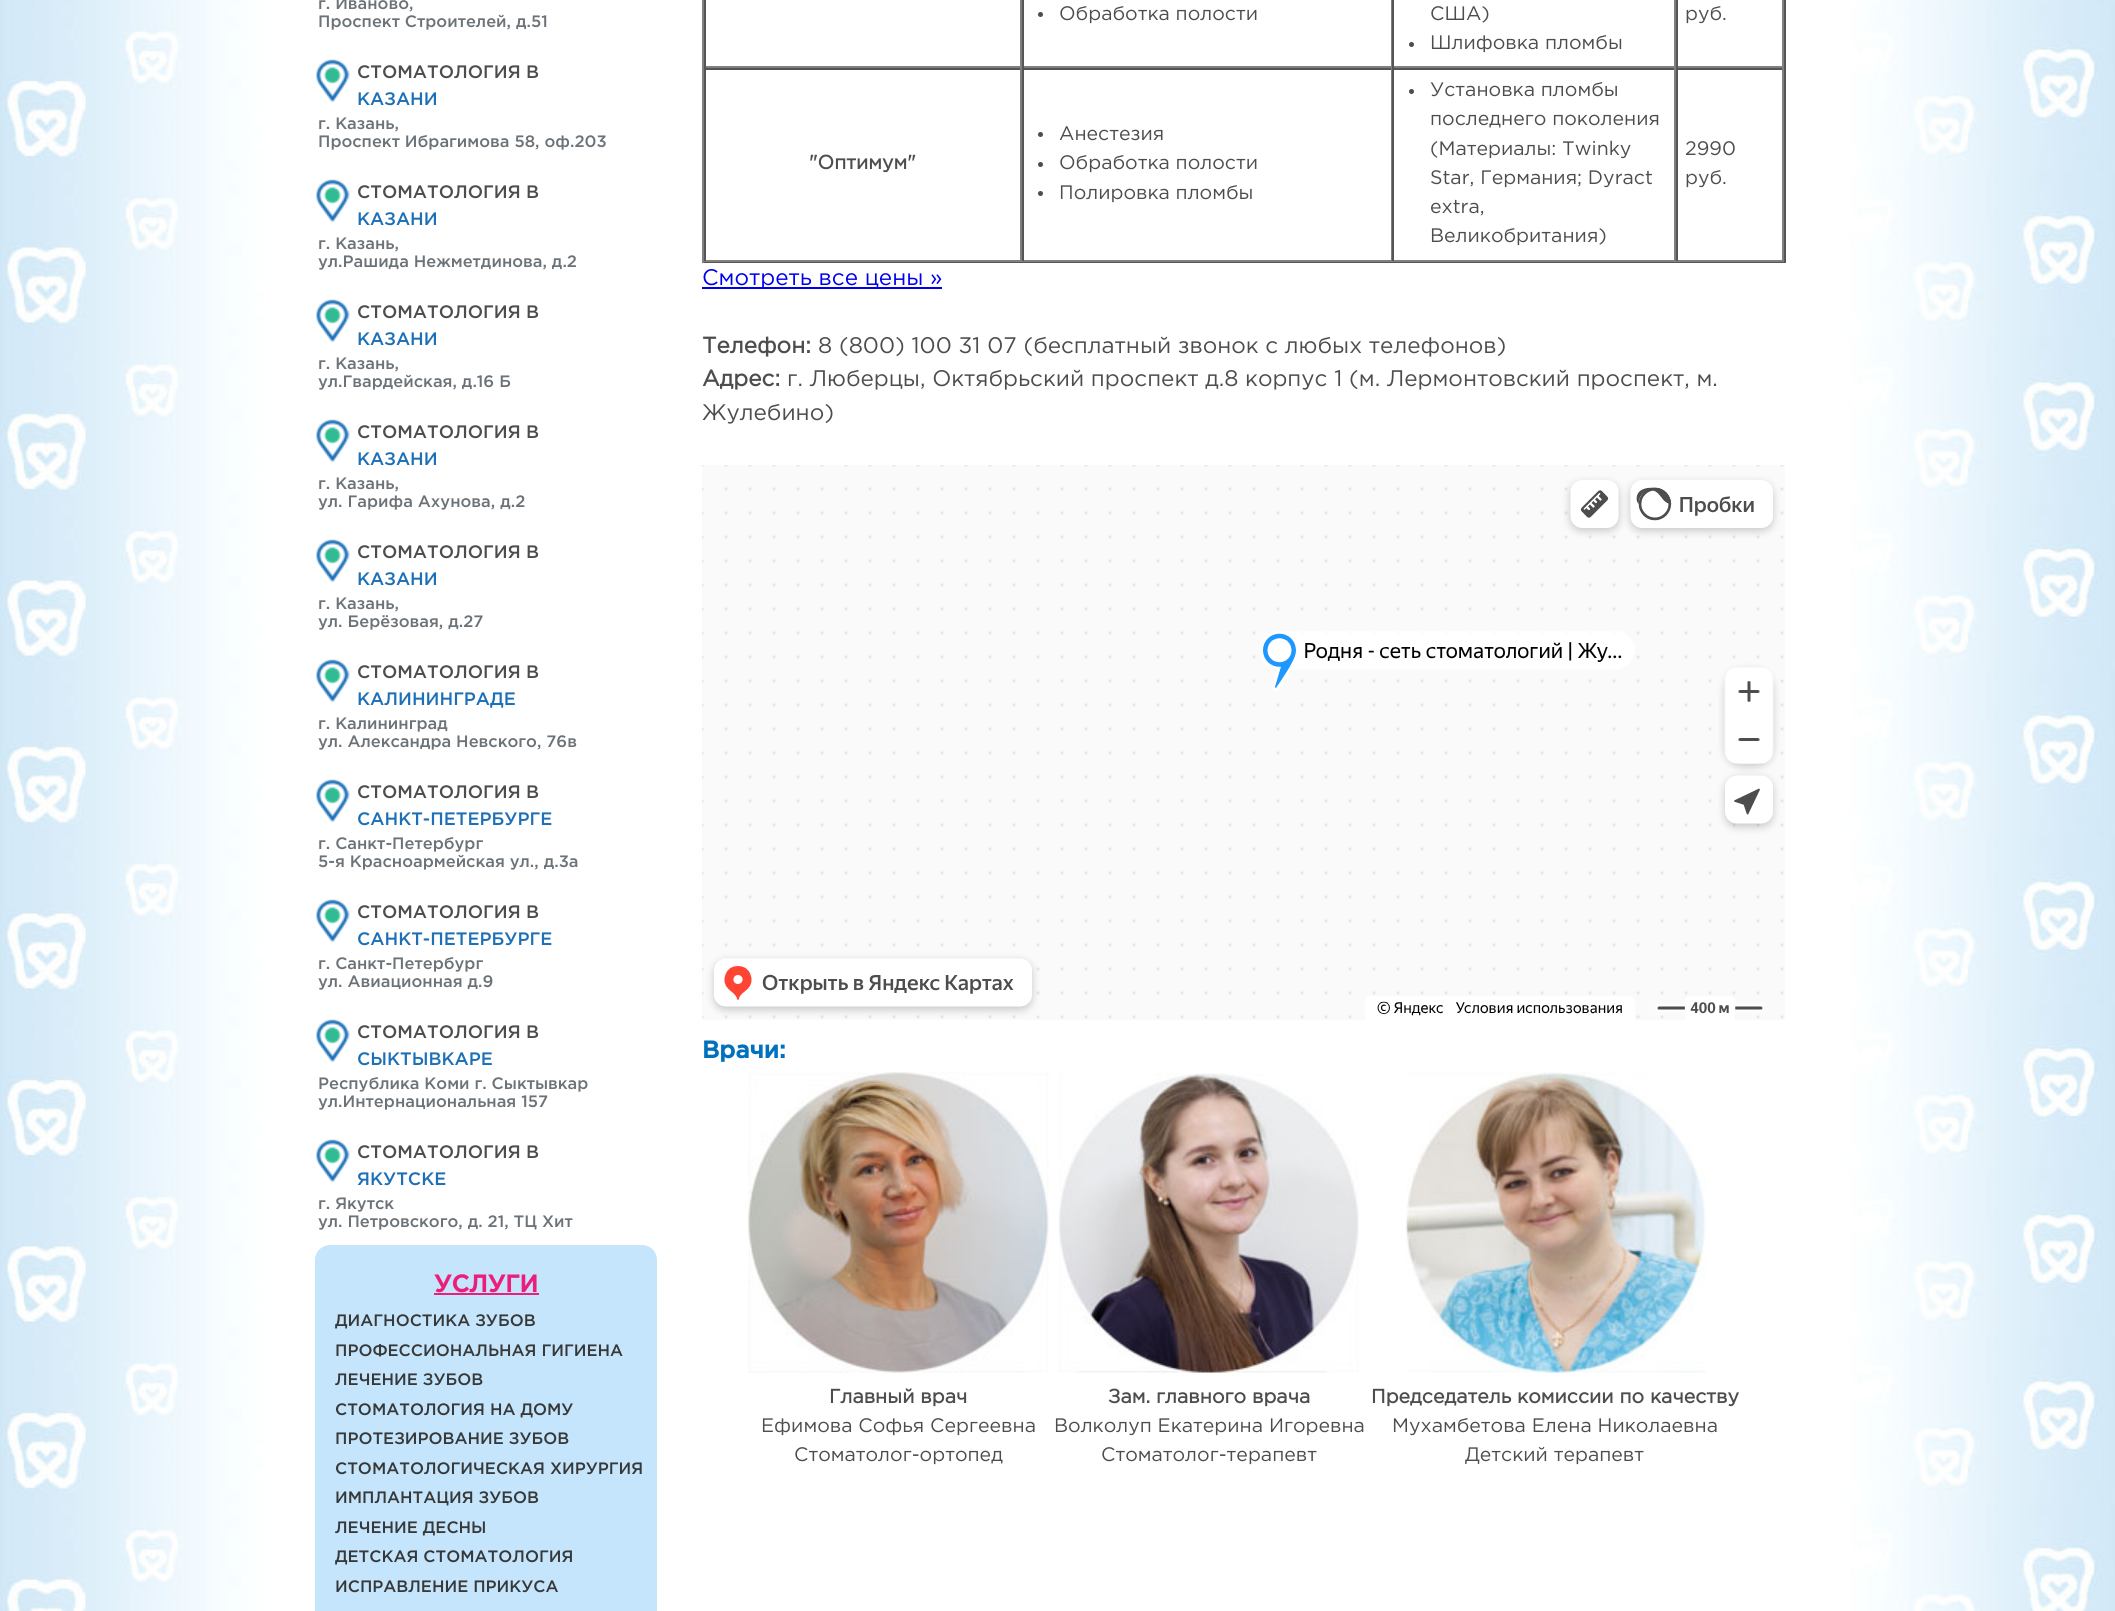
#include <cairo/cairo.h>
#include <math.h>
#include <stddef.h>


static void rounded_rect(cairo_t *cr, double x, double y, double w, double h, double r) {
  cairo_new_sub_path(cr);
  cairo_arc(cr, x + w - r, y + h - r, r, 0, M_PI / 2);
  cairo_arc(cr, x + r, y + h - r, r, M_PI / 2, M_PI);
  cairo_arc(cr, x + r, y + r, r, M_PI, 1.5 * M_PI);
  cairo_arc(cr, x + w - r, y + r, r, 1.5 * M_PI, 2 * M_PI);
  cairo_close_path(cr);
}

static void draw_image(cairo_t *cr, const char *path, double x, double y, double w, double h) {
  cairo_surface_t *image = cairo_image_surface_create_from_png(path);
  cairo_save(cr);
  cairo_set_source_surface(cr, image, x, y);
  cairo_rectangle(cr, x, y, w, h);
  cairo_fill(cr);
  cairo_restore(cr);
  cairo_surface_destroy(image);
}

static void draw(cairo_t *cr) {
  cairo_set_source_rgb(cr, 1, 1, 1);
  cairo_paint(cr);
  draw_image(cr, "images/1.png", 0, 0, 2115, 1611);
  draw_image(cr, "images/2.png", 316, 59, 34, 44);
  draw_image(cr, "images/2.png", 316, 179, 34, 44);
  draw_image(cr, "images/2.png", 316, 299, 34, 44);
  draw_image(cr, "images/2.png", 316, 419, 34, 44);
  draw_image(cr, "images/2.png", 316, 539, 34, 44);
  draw_image(cr, "images/2.png", 316, 659, 34, 44);
  draw_image(cr, "images/2.png", 316, 779, 34, 44);
  draw_image(cr, "images/2.png", 316, 899, 34, 44);
  draw_image(cr, "images/2.png", 316, 1019, 34, 44);
  draw_image(cr, "images/2.png", 316, 1139, 34, 44);
  cairo_set_source_rgb(cr, 197 / 255.0, 229 / 255.0, 252 / 255.0);
  rounded_rect(cr, 315, 1245, 342, 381, 15);
  cairo_fill(cr);
  cairo_set_source_rgb(cr, 237 / 255.0, 30 / 255.0, 121 / 255.0);
  cairo_rectangle(cr, 434, 1293, 105, 2);
  cairo_fill(cr);
  cairo_set_source_rgb(cr, 85 / 255.0, 85 / 255.0, 85 / 255.0);
  cairo_rectangle(cr, 1784, 0, 2, 263);
  cairo_fill(cr);
  cairo_rectangle(cr, 702, 261, 1083, 2);
  cairo_fill(cr);
  cairo_set_source_rgb(cr, 128 / 255.0, 128 / 255.0, 128 / 255.0);
  cairo_rectangle(cr, 702, 0, 2, 263);
  cairo_fill(cr);
  cairo_rectangle(cr, 1020, 0, 2, 68);
  cairo_fill(cr);
  cairo_rectangle(cr, 704, 66, 318, 2);
  cairo_fill(cr);
  cairo_set_source_rgb(cr, 85 / 255.0, 85 / 255.0, 85 / 255.0);
  cairo_rectangle(cr, 704, 0, 2, 68);
  cairo_fill(cr);
  cairo_set_source_rgb(cr, 128 / 255.0, 128 / 255.0, 128 / 255.0);
  cairo_rectangle(cr, 1391, 0, 1, 68);
  cairo_fill(cr);
  cairo_rectangle(cr, 1022, 66, 370, 2);
  cairo_fill(cr);
  cairo_set_source_rgb(cr, 85 / 255.0, 85 / 255.0, 85 / 255.0);
  cairo_rectangle(cr, 1022, 0, 2, 68);
  cairo_fill(cr);
  cairo_set_source_rgb(cr, 77 / 255.0, 77 / 255.0, 77 / 255.0);
  cairo_arc(cr, 1040.5, 14.5, 2.5, 0, 2 * M_PI);
  cairo_fill(cr);
  cairo_set_source_rgb(cr, 128 / 255.0, 128 / 255.0, 128 / 255.0);
  cairo_rectangle(cr, 1674, 0, 2, 68);
  cairo_fill(cr);
  cairo_rectangle(cr, 1392, 66, 284, 2);
  cairo_fill(cr);
  cairo_set_source_rgb(cr, 85 / 255.0, 85 / 255.0, 85 / 255.0);
  cairo_rectangle(cr, 1392, 0, 2, 68);
  cairo_fill(cr);
  cairo_set_source_rgb(cr, 77 / 255.0, 77 / 255.0, 77 / 255.0);
  cairo_arc(cr, 1411.5, 44.5, 2.5, 0, 2 * M_PI);
  cairo_fill(cr);
  cairo_set_source_rgb(cr, 128 / 255.0, 128 / 255.0, 128 / 255.0);
  cairo_rectangle(cr, 1782, 0, 2, 68);
  cairo_fill(cr);
  cairo_rectangle(cr, 1676, 66, 108, 2);
  cairo_fill(cr);
  cairo_set_source_rgb(cr, 85 / 255.0, 85 / 255.0, 85 / 255.0);
  cairo_rectangle(cr, 1676, 0, 2, 68);
  cairo_fill(cr);
  cairo_rectangle(cr, 704, 68, 1080, 2);
  cairo_fill(cr);
  cairo_set_source_rgb(cr, 128 / 255.0, 128 / 255.0, 128 / 255.0);
  cairo_rectangle(cr, 1020, 68, 2, 193);
  cairo_fill(cr);
  cairo_rectangle(cr, 704, 260, 318, 2);
  cairo_fill(cr);
  cairo_set_source_rgb(cr, 85 / 255.0, 85 / 255.0, 85 / 255.0);
  cairo_rectangle(cr, 704, 68, 2, 193);
  cairo_fill(cr);
  cairo_set_source_rgb(cr, 128 / 255.0, 128 / 255.0, 128 / 255.0);
  cairo_rectangle(cr, 1391, 68, 1, 193);
  cairo_fill(cr);
  cairo_rectangle(cr, 1022, 260, 370, 2);
  cairo_fill(cr);
  cairo_set_source_rgb(cr, 85 / 255.0, 85 / 255.0, 85 / 255.0);
  cairo_rectangle(cr, 1022, 68, 2, 193);
  cairo_fill(cr);
  cairo_set_source_rgb(cr, 77 / 255.0, 77 / 255.0, 77 / 255.0);
  cairo_arc(cr, 1040.5, 134.5, 2.5, 0, 2 * M_PI);
  cairo_fill(cr);
  cairo_arc(cr, 1040.5, 164.5, 2.5, 0, 2 * M_PI);
  cairo_fill(cr);
  cairo_arc(cr, 1040.5, 193.5, 2.5, 0, 2 * M_PI);
  cairo_fill(cr);
  cairo_set_source_rgb(cr, 128 / 255.0, 128 / 255.0, 128 / 255.0);
  cairo_rectangle(cr, 1674, 68, 2, 193);
  cairo_fill(cr);
  cairo_rectangle(cr, 1392, 260, 284, 2);
  cairo_fill(cr);
  cairo_set_source_rgb(cr, 85 / 255.0, 85 / 255.0, 85 / 255.0);
  cairo_rectangle(cr, 1392, 68, 2, 193);
  cairo_fill(cr);
  cairo_set_source_rgb(cr, 77 / 255.0, 77 / 255.0, 77 / 255.0);
  cairo_arc(cr, 1411.5, 91.5, 2.5, 0, 2 * M_PI);
  cairo_fill(cr);
  cairo_set_source_rgb(cr, 128 / 255.0, 128 / 255.0, 128 / 255.0);
  cairo_rectangle(cr, 1782, 68, 2, 193);
  cairo_fill(cr);
  cairo_rectangle(cr, 1676, 260, 108, 2);
  cairo_fill(cr);
  cairo_set_source_rgb(cr, 85 / 255.0, 85 / 255.0, 85 / 255.0);
  cairo_rectangle(cr, 1676, 68, 2, 193);
  cairo_fill(cr);
  cairo_set_source_rgb(cr, 0, 0, 238 / 255.0);
  cairo_rectangle(cr, 702, 287, 240, 2);
  cairo_fill(cr);
  draw_image(cr, "images/3.png", 702, 465, 1083, 555);
  draw_image(cr, "images/4.png", 748, 1072, 301, 301);
  draw_image(cr, "images/5.png", 1059, 1073, 300, 300);
  draw_image(cr, "images/6.png", 1405, 1072, 301, 301);
  cairo_select_font_face(cr, "Gotham Medium", CAIRO_FONT_SLANT_NORMAL, CAIRO_FONT_WEIGHT_NORMAL);
  cairo_set_font_size(cr, 16.5);
  cairo_set_source_rgb(cr, 107 / 255.0, 115 / 255.0, 121 / 255.0);
  cairo_move_to(cr, 318, 9);
  cairo_show_text(cr, "г. Иваново,");
  cairo_move_to(cr, 318, 27);
  cairo_show_text(cr, "Проспект Строителей, д.51");
  cairo_set_font_size(cr, 18);
  cairo_set_source_rgb(cr, 77 / 255.0, 77 / 255.0, 77 / 255.0);
  cairo_move_to(cr, 357, 78);
  cairo_show_text(cr, "СТОМАТОЛОГИЯ В");
  cairo_set_source_rgb(cr, 29 / 255.0, 112 / 255.0, 183 / 255.0);
  cairo_move_to(cr, 357, 105);
  cairo_show_text(cr, "КАЗАНИ");
  cairo_set_font_size(cr, 16.5);
  cairo_set_source_rgb(cr, 107 / 255.0, 115 / 255.0, 121 / 255.0);
  cairo_move_to(cr, 318, 129);
  cairo_show_text(cr, "г. Казань,");
  cairo_move_to(cr, 318, 147);
  cairo_show_text(cr, "Проспект Ибрагимова 58, оф.203");
  cairo_set_font_size(cr, 18);
  cairo_set_source_rgb(cr, 77 / 255.0, 77 / 255.0, 77 / 255.0);
  cairo_move_to(cr, 357, 198);
  cairo_show_text(cr, "СТОМАТОЛОГИЯ В");
  cairo_set_source_rgb(cr, 29 / 255.0, 112 / 255.0, 183 / 255.0);
  cairo_move_to(cr, 357, 225);
  cairo_show_text(cr, "КАЗАНИ");
  cairo_set_font_size(cr, 16.5);
  cairo_set_source_rgb(cr, 107 / 255.0, 115 / 255.0, 121 / 255.0);
  cairo_move_to(cr, 318, 249);
  cairo_show_text(cr, "г. Казань,");
  cairo_move_to(cr, 318, 267);
  cairo_show_text(cr, "ул.Рашида Нежметдинова, д.2");
  cairo_set_font_size(cr, 18);
  cairo_set_source_rgb(cr, 77 / 255.0, 77 / 255.0, 77 / 255.0);
  cairo_move_to(cr, 357, 318);
  cairo_show_text(cr, "СТОМАТОЛОГИЯ В");
  cairo_set_source_rgb(cr, 29 / 255.0, 112 / 255.0, 183 / 255.0);
  cairo_move_to(cr, 357, 345);
  cairo_show_text(cr, "КАЗАНИ");
  cairo_set_font_size(cr, 16.5);
  cairo_set_source_rgb(cr, 107 / 255.0, 115 / 255.0, 121 / 255.0);
  cairo_move_to(cr, 318, 369);
  cairo_show_text(cr, "г. Казань,");
  cairo_move_to(cr, 318, 387);
  cairo_show_text(cr, "ул.Гвардейская, д.16 Б");
  cairo_set_font_size(cr, 18);
  cairo_set_source_rgb(cr, 77 / 255.0, 77 / 255.0, 77 / 255.0);
  cairo_move_to(cr, 357, 438);
  cairo_show_text(cr, "СТОМАТОЛОГИЯ В");
  cairo_set_source_rgb(cr, 29 / 255.0, 112 / 255.0, 183 / 255.0);
  cairo_move_to(cr, 357, 465);
  cairo_show_text(cr, "КАЗАНИ");
  cairo_set_font_size(cr, 16.5);
  cairo_set_source_rgb(cr, 107 / 255.0, 115 / 255.0, 121 / 255.0);
  cairo_move_to(cr, 318, 489);
  cairo_show_text(cr, "г. Казань,");
  cairo_move_to(cr, 318, 507);
  cairo_show_text(cr, "ул. Гарифа Ахунова, д.2");
  cairo_set_font_size(cr, 18);
  cairo_set_source_rgb(cr, 77 / 255.0, 77 / 255.0, 77 / 255.0);
  cairo_move_to(cr, 357, 558);
  cairo_show_text(cr, "СТОМАТОЛОГИЯ В");
  cairo_set_source_rgb(cr, 29 / 255.0, 112 / 255.0, 183 / 255.0);
  cairo_move_to(cr, 357, 585);
  cairo_show_text(cr, "КАЗАНИ");
  cairo_set_font_size(cr, 16.5);
  cairo_set_source_rgb(cr, 107 / 255.0, 115 / 255.0, 121 / 255.0);
  cairo_move_to(cr, 318, 609);
  cairo_show_text(cr, "г. Казань,");
  cairo_move_to(cr, 318, 627);
  cairo_show_text(cr, "ул. Берёзовая, д.27");
  cairo_set_font_size(cr, 18);
  cairo_set_source_rgb(cr, 77 / 255.0, 77 / 255.0, 77 / 255.0);
  cairo_move_to(cr, 357, 678);
  cairo_show_text(cr, "СТОМАТОЛОГИЯ В");
  cairo_set_source_rgb(cr, 29 / 255.0, 112 / 255.0, 183 / 255.0);
  cairo_move_to(cr, 357, 705);
  cairo_show_text(cr, "КАЛИНИНГРАДЕ");
  cairo_set_font_size(cr, 16.5);
  cairo_set_source_rgb(cr, 107 / 255.0, 115 / 255.0, 121 / 255.0);
  cairo_move_to(cr, 318, 729);
  cairo_show_text(cr, "г. Калининград");
  cairo_move_to(cr, 318, 747);
  cairo_show_text(cr, "ул. Александра Невского, 76в");
  cairo_set_font_size(cr, 18);
  cairo_set_source_rgb(cr, 77 / 255.0, 77 / 255.0, 77 / 255.0);
  cairo_move_to(cr, 357, 798);
  cairo_show_text(cr, "СТОМАТОЛОГИЯ В");
  cairo_set_source_rgb(cr, 29 / 255.0, 112 / 255.0, 183 / 255.0);
  cairo_move_to(cr, 357, 825);
  cairo_show_text(cr, "САНКТ-ПЕТЕРБУРГЕ");
  cairo_set_font_size(cr, 16.5);
  cairo_set_source_rgb(cr, 107 / 255.0, 115 / 255.0, 121 / 255.0);
  cairo_move_to(cr, 318, 849);
  cairo_show_text(cr, "г. Санкт-Петербург");
  cairo_move_to(cr, 318, 867);
  cairo_show_text(cr, "5-я Красноармейская ул., д.3а");
  cairo_set_font_size(cr, 18);
  cairo_set_source_rgb(cr, 77 / 255.0, 77 / 255.0, 77 / 255.0);
  cairo_move_to(cr, 357, 918);
  cairo_show_text(cr, "СТОМАТОЛОГИЯ В");
  cairo_set_source_rgb(cr, 29 / 255.0, 112 / 255.0, 183 / 255.0);
  cairo_move_to(cr, 357, 945);
  cairo_show_text(cr, "САНКТ-ПЕТЕРБУРГЕ");
  cairo_set_font_size(cr, 16.5);
  cairo_set_source_rgb(cr, 107 / 255.0, 115 / 255.0, 121 / 255.0);
  cairo_move_to(cr, 318, 969);
  cairo_show_text(cr, "г. Санкт-Петербург");
  cairo_move_to(cr, 318, 987);
  cairo_show_text(cr, "ул. Авиационная д.9");
  cairo_set_font_size(cr, 18);
  cairo_set_source_rgb(cr, 77 / 255.0, 77 / 255.0, 77 / 255.0);
  cairo_move_to(cr, 357, 1038);
  cairo_show_text(cr, "СТОМАТОЛОГИЯ В");
  cairo_set_source_rgb(cr, 29 / 255.0, 112 / 255.0, 183 / 255.0);
  cairo_move_to(cr, 357, 1065);
  cairo_show_text(cr, "СЫКТЫВКАРЕ");
  cairo_set_font_size(cr, 16.5);
  cairo_set_source_rgb(cr, 107 / 255.0, 115 / 255.0, 121 / 255.0);
  cairo_move_to(cr, 318, 1089);
  cairo_show_text(cr, "Республика Коми г. Сыктывкар");
  cairo_move_to(cr, 318, 1107);
  cairo_show_text(cr, "ул.Интернациональная 157");
  cairo_set_font_size(cr, 18);
  cairo_set_source_rgb(cr, 77 / 255.0, 77 / 255.0, 77 / 255.0);
  cairo_move_to(cr, 357, 1158);
  cairo_show_text(cr, "СТОМАТОЛОГИЯ В");
  cairo_set_source_rgb(cr, 29 / 255.0, 112 / 255.0, 183 / 255.0);
  cairo_move_to(cr, 357, 1185);
  cairo_show_text(cr, "ЯКУТСКЕ");
  cairo_set_font_size(cr, 16.5);
  cairo_set_source_rgb(cr, 107 / 255.0, 115 / 255.0, 121 / 255.0);
  cairo_move_to(cr, 318, 1209);
  cairo_show_text(cr, "г. Якутск");
  cairo_move_to(cr, 318, 1227);
  cairo_show_text(cr, "ул. Петровского, д. 21, ТЦ Хит");
  cairo_select_font_face(cr, "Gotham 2", CAIRO_FONT_SLANT_NORMAL, CAIRO_FONT_WEIGHT_BOLD);
  cairo_set_font_size(cr, 24);
  cairo_set_source_rgb(cr, 237 / 255.0, 30 / 255.0, 121 / 255.0);
  cairo_move_to(cr, 434, 1292);
  cairo_show_text(cr, "УСЛУГИ");
  cairo_select_font_face(cr, "Gotham Medium", CAIRO_FONT_SLANT_NORMAL, CAIRO_FONT_WEIGHT_NORMAL);
  cairo_set_font_size(cr, 16.5);
  cairo_set_source_rgb(cr, 55 / 255.0, 56 / 255.0, 56 / 255.0);
  cairo_move_to(cr, 335, 1326);
  cairo_show_text(cr, "ДИАГНОСТИКА ЗУБОВ");
  cairo_move_to(cr, 335, 1356);
  cairo_show_text(cr, "ПРОФЕССИОНАЛЬНАЯ ГИГИЕНА");
  cairo_move_to(cr, 335, 1385);
  cairo_show_text(cr, "ЛЕЧЕНИЕ ЗУБОВ");
  cairo_move_to(cr, 335, 1415);
  cairo_show_text(cr, "СТОМАТОЛОГИЯ НА ДОМУ");
  cairo_move_to(cr, 335, 1444);
  cairo_show_text(cr, "ПРОТЕЗИРОВАНИЕ ЗУБОВ");
  cairo_move_to(cr, 335, 1474);
  cairo_show_text(cr, "СТОМАТОЛОГИЧЕСКАЯ ХИРУРГИЯ");
  cairo_move_to(cr, 335, 1503);
  cairo_show_text(cr, "ИМПЛАНТАЦИЯ ЗУБОВ");
  cairo_move_to(cr, 335, 1533);
  cairo_show_text(cr, "ЛЕЧЕНИЕ ДЕСНЫ");
  cairo_move_to(cr, 335, 1562);
  cairo_show_text(cr, "ДЕТСКАЯ СТОМАТОЛОГИЯ");
  cairo_move_to(cr, 335, 1592);
  cairo_show_text(cr, "ИСПРАВЛЕНИЕ ПРИКУСА");
  cairo_select_font_face(cr, "Gotham", CAIRO_FONT_SLANT_NORMAL, CAIRO_FONT_WEIGHT_NORMAL);
  cairo_set_font_size(cr, 19.5);
  cairo_set_source_rgb(cr, 77 / 255.0, 77 / 255.0, 77 / 255.0);
  cairo_move_to(cr, 1059, 20);
  cairo_show_text(cr, "Обработка полости");
  cairo_move_to(cr, 1430, 20);
  cairo_show_text(cr, "США)");
  cairo_move_to(cr, 1430, 49);
  cairo_show_text(cr, "Шлифовка пломбы");
  cairo_move_to(cr, 1685, 20);
  cairo_show_text(cr, "руб.");
  cairo_select_font_face(cr, "Gotham", CAIRO_FONT_SLANT_NORMAL, CAIRO_FONT_WEIGHT_BOLD);
  cairo_move_to(cr, 809, 169);
  cairo_show_text(cr, "\"Оптимум\"");
  cairo_select_font_face(cr, "Gotham", CAIRO_FONT_SLANT_NORMAL, CAIRO_FONT_WEIGHT_NORMAL);
  cairo_move_to(cr, 1059, 140);
  cairo_show_text(cr, "Анестезия");
  cairo_move_to(cr, 1059, 169);
  cairo_show_text(cr, "Обработка полости");
  cairo_move_to(cr, 1059, 199);
  cairo_show_text(cr, "Полировка пломбы");
  cairo_move_to(cr, 1430, 96);
  cairo_show_text(cr, "Установка пломбы");
  cairo_move_to(cr, 1430, 125);
  cairo_show_text(cr, "последнего поколения");
  cairo_move_to(cr, 1430, 155);
  cairo_show_text(cr, "(Материалы: Twinky");
  cairo_move_to(cr, 1430, 184);
  cairo_show_text(cr, "Star, Германия; Dyract");
  cairo_move_to(cr, 1430, 213);
  cairo_show_text(cr, "extra,");
  cairo_move_to(cr, 1430, 242);
  cairo_show_text(cr, "Великобритания)");
  cairo_move_to(cr, 1685, 155);
  cairo_show_text(cr, "2990");
  cairo_move_to(cr, 1685, 184);
  cairo_show_text(cr, "руб.");
  cairo_set_font_size(cr, 22.5);
  cairo_set_source_rgb(cr, 0, 0, 238 / 255.0);
  cairo_move_to(cr, 702, 285);
  cairo_show_text(cr, "Смотреть все цены »");
  cairo_select_font_face(cr, "Gotham", CAIRO_FONT_SLANT_NORMAL, CAIRO_FONT_WEIGHT_BOLD);
  cairo_set_source_rgb(cr, 77 / 255.0, 77 / 255.0, 77 / 255.0);
  cairo_move_to(cr, 702, 353);
  cairo_show_text(cr, "Телефон:");
  cairo_select_font_face(cr, "Gotham", CAIRO_FONT_SLANT_NORMAL, CAIRO_FONT_WEIGHT_NORMAL);
  cairo_move_to(cr, 818, 353);
  cairo_show_text(cr, "8 (800) 100 31 07 (бесплатный звонок с любых телефонов)");
  cairo_select_font_face(cr, "Gotham", CAIRO_FONT_SLANT_NORMAL, CAIRO_FONT_WEIGHT_BOLD);
  cairo_move_to(cr, 702, 386);
  cairo_show_text(cr, "Адрес:");
  cairo_select_font_face(cr, "Gotham", CAIRO_FONT_SLANT_NORMAL, CAIRO_FONT_WEIGHT_NORMAL);
  cairo_move_to(cr, 787, 386);
  cairo_show_text(cr, "г. Люберцы, Октябрьский проспект д.8 корпус 1 (м. Лермонтовский проспект, м.");
  cairo_move_to(cr, 702, 420);
  cairo_show_text(cr, "Жулебино)");
  cairo_select_font_face(cr, "Gotham 2", CAIRO_FONT_SLANT_NORMAL, CAIRO_FONT_WEIGHT_BOLD);
  cairo_set_font_size(cr, 24);
  cairo_set_source_rgb(cr, 0, 113 / 255.0, 188 / 255.0);
  cairo_move_to(cr, 702, 1058);
  cairo_show_text(cr, "Врачи:");
  cairo_select_font_face(cr, "Gotham", CAIRO_FONT_SLANT_NORMAL, CAIRO_FONT_WEIGHT_BOLD);
  cairo_set_font_size(cr, 19.5);
  cairo_set_source_rgb(cr, 77 / 255.0, 77 / 255.0, 77 / 255.0);
  cairo_move_to(cr, 829, 1403);
  cairo_show_text(cr, "Главный врач");
  cairo_select_font_face(cr, "Gotham", CAIRO_FONT_SLANT_NORMAL, CAIRO_FONT_WEIGHT_NORMAL);
  cairo_move_to(cr, 761, 1432);
  cairo_show_text(cr, "Ефимова Софья Сергеевна");
  cairo_move_to(cr, 794, 1461);
  cairo_show_text(cr, "Стоматолог-ортопед");
  cairo_select_font_face(cr, "Gotham", CAIRO_FONT_SLANT_NORMAL, CAIRO_FONT_WEIGHT_BOLD);
  cairo_move_to(cr, 1108, 1403);
  cairo_show_text(cr, "Зам. главного врача");
  cairo_select_font_face(cr, "Gotham", CAIRO_FONT_SLANT_NORMAL, CAIRO_FONT_WEIGHT_NORMAL);
  cairo_move_to(cr, 1054, 1432);
  cairo_show_text(cr, "Волколуп Екатерина Игоревна");
  cairo_move_to(cr, 1101, 1461);
  cairo_show_text(cr, "Стоматолог-терапевт");
  cairo_select_font_face(cr, "Gotham", CAIRO_FONT_SLANT_NORMAL, CAIRO_FONT_WEIGHT_BOLD);
  cairo_move_to(cr, 1371, 1403);
  cairo_show_text(cr, "Председатель комиссии по качеству");
  cairo_select_font_face(cr, "Gotham", CAIRO_FONT_SLANT_NORMAL, CAIRO_FONT_WEIGHT_NORMAL);
  cairo_move_to(cr, 1392, 1432);
  cairo_show_text(cr, "Мухамбетова Елена Николаевна");
  cairo_move_to(cr, 1465, 1461);
  cairo_show_text(cr, "Детский терапевт");
}

int main(void) {
  cairo_surface_t *surface = cairo_image_surface_create(CAIRO_FORMAT_RGB24, 2115, 1611);
  cairo_t *cr = cairo_create(surface);
  cairo_font_options_t *options = cairo_font_options_create();
  cairo_font_options_set_hint_metrics(options, CAIRO_HINT_METRICS_OFF);
  cairo_font_options_set_hint_style(options, CAIRO_HINT_STYLE_NONE);
  cairo_set_font_options(cr, options);
  cairo_set_miter_limit(cr, 4);
  draw(cr);
  cairo_surface_write_to_png(surface, "out.png");
  cairo_font_options_destroy(options);
  cairo_destroy(cr);
  cairo_surface_destroy(surface);
  return 0;
}
